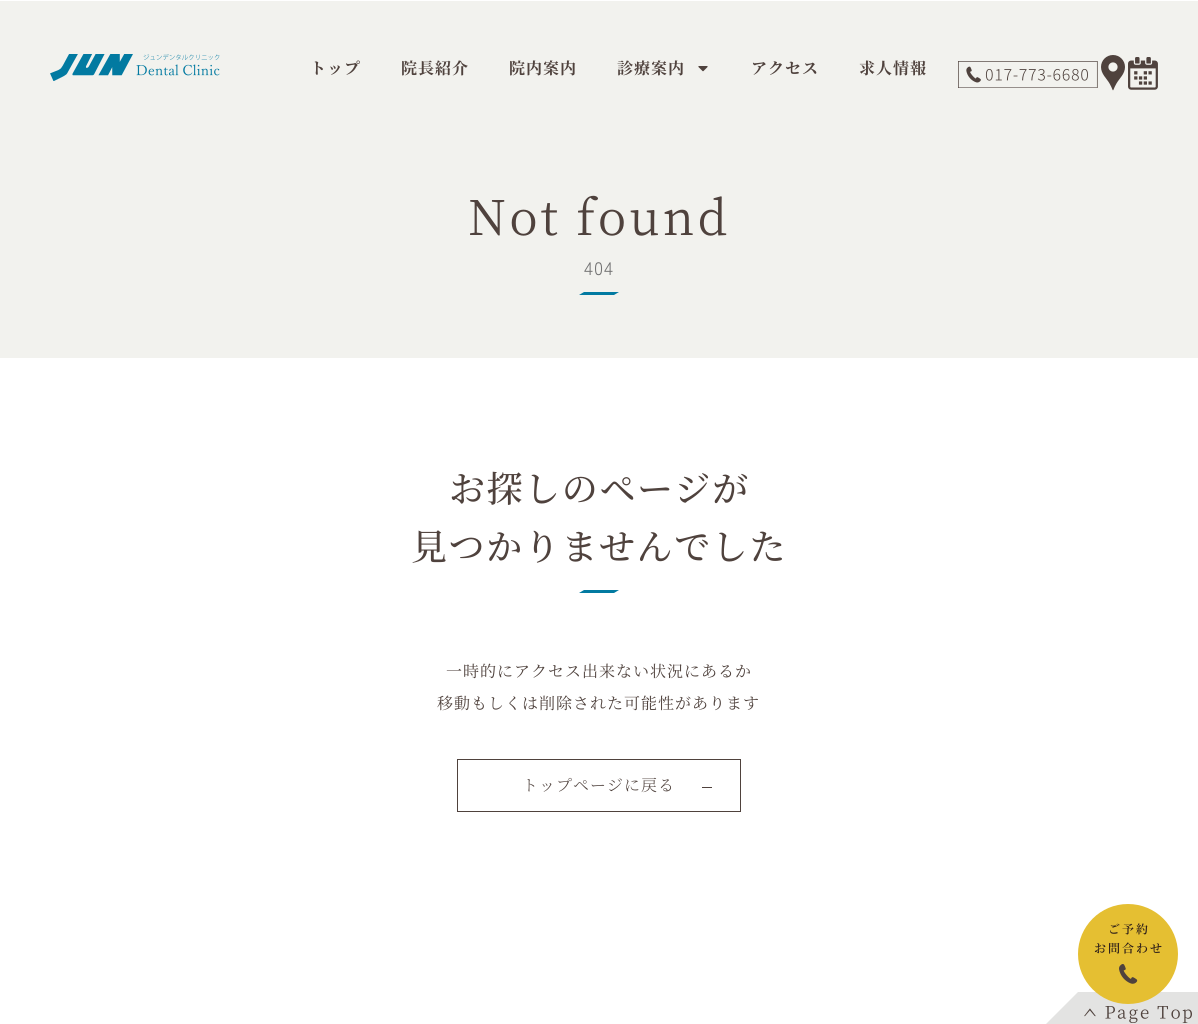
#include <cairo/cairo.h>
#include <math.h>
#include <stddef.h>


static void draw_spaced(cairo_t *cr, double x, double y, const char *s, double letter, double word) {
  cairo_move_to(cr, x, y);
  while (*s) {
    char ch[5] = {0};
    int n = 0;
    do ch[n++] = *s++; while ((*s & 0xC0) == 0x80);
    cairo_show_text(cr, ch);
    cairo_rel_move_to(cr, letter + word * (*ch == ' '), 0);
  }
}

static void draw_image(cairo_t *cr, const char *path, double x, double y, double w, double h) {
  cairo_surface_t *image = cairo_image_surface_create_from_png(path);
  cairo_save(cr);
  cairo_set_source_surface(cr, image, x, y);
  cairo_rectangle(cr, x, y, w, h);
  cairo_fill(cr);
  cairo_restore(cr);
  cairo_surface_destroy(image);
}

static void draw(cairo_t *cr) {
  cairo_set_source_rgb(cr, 1, 1, 1);
  cairo_paint(cr);
  cairo_set_source_rgb(cr, 242 / 255.0, 242 / 255.0, 238 / 255.0);
  cairo_rectangle(cr, 0, 1, 1198, 357);
  cairo_fill(cr);
  draw_image(cr, "images/1.png", 50, 54, 170, 27);
  draw_image(cr, "images/2.png", 698, 66, 10, 6);
  draw_image(cr, "images/3.png", 958, 61, 140, 27);
  draw_image(cr, "images/4.png", 1101, 55, 24, 36);
  draw_image(cr, "images/5.png", 1128, 57, 30, 33);
  cairo_set_source_rgb(cr, 2 / 255.0, 122 / 255.0, 161 / 255.0);
  cairo_set_fill_rule(cr, CAIRO_FILL_RULE_EVEN_ODD);
  cairo_new_path(cr);
  cairo_move_to(cr, 584, 292);
  cairo_line_to(cr, 619, 292);
  cairo_line_to(cr, 614, 295);
  cairo_line_to(cr, 579, 295);
  cairo_close_path(cr);
  cairo_fill(cr);
  cairo_new_path(cr);
  cairo_move_to(cr, 584, 590);
  cairo_line_to(cr, 619, 590);
  cairo_line_to(cr, 614, 593);
  cairo_line_to(cr, 579, 593);
  cairo_close_path(cr);
  cairo_fill(cr);
  cairo_set_source_rgb(cr, 79 / 255.0, 66 / 255.0, 61 / 255.0);
  cairo_rectangle(cr, 702, 787, 10, 1);
  cairo_fill(cr);
  cairo_rectangle(cr, 457.5, 759.5, 283, 52);
  cairo_set_line_width(cr, 1);
  cairo_stroke(cr);
  cairo_set_source_rgb(cr, 227 / 255.0, 227 / 255.0, 226 / 255.0);
  cairo_rectangle(cr, 1078, 992, 120, 32);
  cairo_fill(cr);
  draw_image(cr, "images/6.png", 1078, 904, 100, 100);
  cairo_new_path(cr);
  cairo_move_to(cr, 1078, 992);
  cairo_line_to(cr, 1078, 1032);
  cairo_line_to(cr, 1038, 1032);
  cairo_close_path(cr);
  cairo_fill(cr);
  draw_image(cr, "images/7.png", 1084, 1006, 108, 17);
  cairo_select_font_face(cr, "Noto Serif JP", CAIRO_FONT_SLANT_NORMAL, CAIRO_FONT_WEIGHT_BOLD);
  cairo_set_font_size(cr, 16);
  cairo_set_source_rgb(cr, 79 / 255.0, 66 / 255.0, 61 / 255.0);
  draw_spaced(cr, 310, 74, "トップ", 1, 0);
  draw_spaced(cr, 401, 74, "院長紹介", 1, 0);
  draw_spaced(cr, 509, 74, "院内案内", 1, 0);
  draw_spaced(cr, 617, 74, "診療案内", 1, 0);
  draw_spaced(cr, 751, 74, "アクセス", 1, 0);
  draw_spaced(cr, 859, 74, "求人情報", 1, 0);
  cairo_select_font_face(cr, "Noto Serif JP", CAIRO_FONT_SLANT_NORMAL, CAIRO_FONT_WEIGHT_NORMAL);
  cairo_set_font_size(cr, 48);
  draw_spaced(cr, 468, 235, "Not found", 3, 0);
  cairo_select_font_face(cr, "Zen Kaku Gothic New", CAIRO_FONT_SLANT_NORMAL, CAIRO_FONT_WEIGHT_NORMAL);
  cairo_set_font_size(cr, 18);
  cairo_set_source_rgb(cr, 114 / 255.0, 114 / 255.0, 114 / 255.0);
  draw_spaced(cr, 584, 275, "404", 1, 0);
  cairo_select_font_face(cr, "Noto Serif JP Medium", CAIRO_FONT_SLANT_NORMAL, CAIRO_FONT_WEIGHT_NORMAL);
  cairo_set_font_size(cr, 36);
  cairo_set_source_rgb(cr, 79 / 255.0, 66 / 255.0, 61 / 255.0);
  draw_spaced(cr, 449, 502, "お探しのページが", 1.6, 0);
  draw_spaced(cr, 411, 560, "見つかりませんでした", 1.6, 0);
  cairo_select_font_face(cr, "Noto Serif JP", CAIRO_FONT_SLANT_NORMAL, CAIRO_FONT_WEIGHT_NORMAL);
  cairo_set_font_size(cr, 16);
  draw_spaced(cr, 446, 677, "一時的にアクセス出来ない状況にあるか", 1, 0);
  draw_spaced(cr, 437, 709, "移動もしくは削除された可能性があります", 1, 0);
  cairo_select_font_face(cr, "Noto Serif JP Light", CAIRO_FONT_SLANT_NORMAL, CAIRO_FONT_WEIGHT_NORMAL);
  draw_spaced(cr, 522, 791, "トップページに戻る", 1, 0);
}

int main(void) {
  cairo_surface_t *surface = cairo_image_surface_create(CAIRO_FORMAT_RGB24, 1198, 1024);
  cairo_t *cr = cairo_create(surface);
  cairo_font_options_t *options = cairo_font_options_create();
  cairo_font_options_set_hint_metrics(options, CAIRO_HINT_METRICS_OFF);
  cairo_font_options_set_hint_style(options, CAIRO_HINT_STYLE_NONE);
  cairo_set_font_options(cr, options);
  cairo_set_miter_limit(cr, 4);
  draw(cr);
  cairo_surface_write_to_png(surface, "out.png");
  cairo_font_options_destroy(options);
  cairo_destroy(cr);
  cairo_surface_destroy(surface);
  return 0;
}
